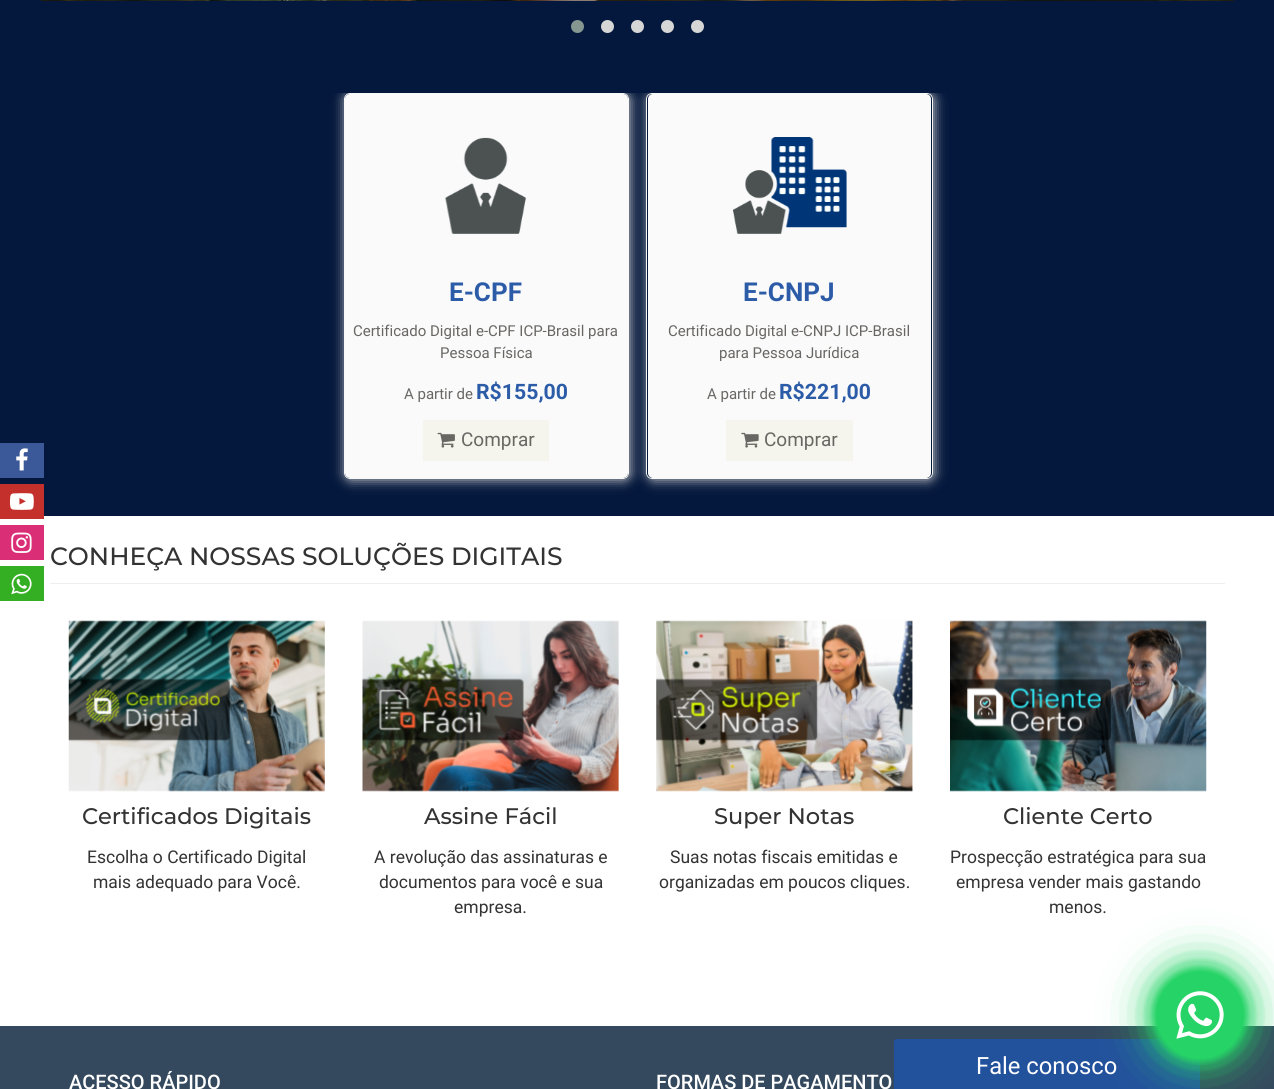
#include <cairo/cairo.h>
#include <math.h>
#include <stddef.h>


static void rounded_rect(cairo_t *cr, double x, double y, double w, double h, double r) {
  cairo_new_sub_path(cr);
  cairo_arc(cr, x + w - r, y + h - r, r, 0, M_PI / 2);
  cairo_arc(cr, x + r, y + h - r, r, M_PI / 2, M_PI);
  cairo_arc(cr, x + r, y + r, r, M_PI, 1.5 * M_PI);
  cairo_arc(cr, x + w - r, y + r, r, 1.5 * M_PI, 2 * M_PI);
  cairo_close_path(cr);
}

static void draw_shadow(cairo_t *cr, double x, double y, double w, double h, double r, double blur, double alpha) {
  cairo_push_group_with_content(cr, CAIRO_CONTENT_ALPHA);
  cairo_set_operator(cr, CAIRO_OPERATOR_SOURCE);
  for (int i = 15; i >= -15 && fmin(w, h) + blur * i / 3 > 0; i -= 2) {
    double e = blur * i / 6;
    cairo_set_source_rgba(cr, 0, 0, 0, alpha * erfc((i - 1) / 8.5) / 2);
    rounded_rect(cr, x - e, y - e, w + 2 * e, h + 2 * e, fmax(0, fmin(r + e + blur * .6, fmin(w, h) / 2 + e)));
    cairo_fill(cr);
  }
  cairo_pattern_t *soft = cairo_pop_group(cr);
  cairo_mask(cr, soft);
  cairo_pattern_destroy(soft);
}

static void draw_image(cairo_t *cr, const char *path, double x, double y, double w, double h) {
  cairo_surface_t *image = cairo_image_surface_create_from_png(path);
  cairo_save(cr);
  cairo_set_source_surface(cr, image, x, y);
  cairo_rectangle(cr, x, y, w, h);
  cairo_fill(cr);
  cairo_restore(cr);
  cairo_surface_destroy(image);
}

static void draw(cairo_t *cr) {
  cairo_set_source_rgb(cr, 1, 1, 1);
  cairo_paint(cr);
  cairo_set_source_rgb(cr, 4 / 255.0, 24 / 255.0, 61 / 255.0);
  cairo_rectangle(cr, 0, 0, 1274, 516);
  cairo_fill(cr);
  draw_image(cr, "images/1.png", 41, 0, 1193, 1);
  cairo_set_source_rgb(cr, 134 / 255.0, 151 / 255.0, 145 / 255.0);
  cairo_arc(cr, 577.5, 26.5, 6.5, 0, 2 * M_PI);
  cairo_fill(cr);
  cairo_set_source_rgb(cr, 214 / 255.0, 214 / 255.0, 214 / 255.0);
  cairo_arc(cr, 607.5, 26.5, 6.5, 0, 2 * M_PI);
  cairo_fill(cr);
  cairo_arc(cr, 637.5, 26.5, 6.5, 0, 2 * M_PI);
  cairo_fill(cr);
  cairo_arc(cr, 667.5, 26.5, 6.5, 0, 2 * M_PI);
  cairo_fill(cr);
  cairo_arc(cr, 697.5, 26.5, 6.5, 0, 2 * M_PI);
  cairo_fill(cr);
  cairo_save(cr);
  cairo_rectangle(cr, 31, 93, 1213, 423);
  cairo_clip(cr);
  cairo_set_fill_rule(cr, CAIRO_FILL_RULE_EVEN_ODD);
  cairo_new_path(cr);
  cairo_move_to(cr, 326, 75);
  cairo_line_to(cr, 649, 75);
  cairo_line_to(cr, 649, 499);
  cairo_line_to(cr, 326, 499);
  cairo_close_path(cr);
  cairo_move_to(cr, 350, 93);
  cairo_line_to(cr, 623, 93);
  cairo_curve_to(cr, 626.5, 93, 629, 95.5, 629, 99);
  cairo_line_to(cr, 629, 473);
  cairo_curve_to(cr, 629, 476.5, 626.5, 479, 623, 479);
  cairo_line_to(cr, 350, 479);
  cairo_curve_to(cr, 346.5, 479, 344, 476.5, 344, 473);
  cairo_line_to(cr, 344, 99);
  cairo_curve_to(cr, 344, 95.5, 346.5, 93, 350, 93);
  cairo_close_path(cr);
  cairo_clip(cr);
  cairo_set_source_rgb(cr, 204 / 255.0, 204 / 255.0, 204 / 255.0);
  draw_shadow(cr, 345, 94, 285, 386, 6, 6, 1);
  cairo_restore(cr);
  rounded_rect(cr, 344.5, 93.5, 284, 385, 5.5);
  cairo_set_source_rgb(cr, 247 / 255.0, 247 / 255.0, 245 / 255.0);
  cairo_set_line_width(cr, 1);
  cairo_stroke(cr);
  cairo_set_source_rgba(cr, 1, 1, 1, 0.98);
  rounded_rect(cr, 345, 94, 283, 384, 5);
  cairo_fill(cr);
  draw_image(cr, "images/2.png", 445, 137, 81, 97);
  cairo_set_source_rgb(cr, 245 / 255.0, 245 / 255.0, 237 / 255.0);
  cairo_rectangle(cr, 423, 420, 126, 41);
  cairo_fill(cr);
  draw_image(cr, "images/3.png", 437, 432, 18, 16);
  cairo_save(cr);
  cairo_rectangle(cr, 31, 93, 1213, 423);
  cairo_clip(cr);
  cairo_set_fill_rule(cr, CAIRO_FILL_RULE_EVEN_ODD);
  cairo_new_path(cr);
  cairo_move_to(cr, 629, 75);
  cairo_line_to(cr, 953, 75);
  cairo_line_to(cr, 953, 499);
  cairo_line_to(cr, 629, 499);
  cairo_close_path(cr);
  cairo_move_to(cr, 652, 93);
  cairo_line_to(cr, 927, 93);
  cairo_curve_to(cr, 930.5, 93, 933, 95.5, 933, 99);
  cairo_line_to(cr, 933, 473);
  cairo_curve_to(cr, 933, 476.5, 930.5, 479, 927, 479);
  cairo_line_to(cr, 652, 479);
  cairo_curve_to(cr, 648.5, 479, 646, 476.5, 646, 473);
  cairo_line_to(cr, 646, 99);
  cairo_curve_to(cr, 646, 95.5, 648.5, 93, 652, 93);
  cairo_close_path(cr);
  cairo_clip(cr);
  cairo_set_source_rgb(cr, 204 / 255.0, 204 / 255.0, 204 / 255.0);
  draw_shadow(cr, 648, 94, 286, 386, 6, 6, 1);
  cairo_restore(cr);
  rounded_rect(cr, 646.5, 93.5, 286, 385, 5.5);
  cairo_set_source_rgb(cr, 247 / 255.0, 247 / 255.0, 245 / 255.0);
  cairo_stroke(cr);
  cairo_set_source_rgba(cr, 1, 1, 1, 0.98);
  rounded_rect(cr, 648, 94, 283, 384, 5);
  cairo_fill(cr);
  draw_image(cr, "images/4.png", 733, 137, 114, 97);
  cairo_set_source_rgb(cr, 245 / 255.0, 245 / 255.0, 237 / 255.0);
  cairo_rectangle(cr, 726, 420, 127, 41);
  cairo_fill(cr);
  draw_image(cr, "images/5.png", 741, 432, 18, 16);
  cairo_set_source_rgb(cr, 238 / 255.0, 238 / 255.0, 238 / 255.0);
  cairo_rectangle(cr, 50, 583, 1175, 1);
  cairo_fill(cr);
  draw_image(cr, "images/6.png", 68, 620, 257, 172);
  draw_image(cr, "images/7.png", 362, 620, 257, 172);
  draw_image(cr, "images/8.png", 656, 620, 257, 172);
  draw_image(cr, "images/9.png", 950, 620, 257, 172);
  cairo_set_source_rgb(cr, 52 / 255.0, 73 / 255.0, 94 / 255.0);
  cairo_rectangle(cr, 0, 1026, 1274, 63);
  cairo_fill(cr);
  cairo_set_source_rgb(cr, 59 / 255.0, 89 / 255.0, 152 / 255.0);
  cairo_rectangle(cr, 0, 443, 44, 35);
  cairo_fill(cr);
  draw_image(cr, "images/10.png", 16, 448, 12, 23);
  cairo_set_source_rgb(cr, 196 / 255.0, 48 / 255.0, 43 / 255.0);
  cairo_rectangle(cr, 0, 484, 44, 35);
  cairo_fill(cr);
  draw_image(cr, "images/11.png", 10, 493, 24, 17);
  cairo_set_source_rgb(cr, 218 / 255.0, 46 / 255.0, 118 / 255.0);
  cairo_rectangle(cr, 0, 525, 44, 35);
  cairo_fill(cr);
  draw_image(cr, "images/12.png", 11, 532, 21, 21);
  cairo_set_source_rgb(cr, 52 / 255.0, 175 / 255.0, 35 / 255.0);
  cairo_rectangle(cr, 0, 566, 44, 35);
  cairo_fill(cr);
  draw_image(cr, "images/13.png", 11, 573, 21, 22);
  cairo_set_source_rgb(cr, 35 / 255.0, 82 / 255.0, 156 / 255.0);
  cairo_new_path(cr);
  cairo_move_to(cr, 898, 1039);
  cairo_line_to(cr, 1196, 1039);
  cairo_curve_to(cr, 1198, 1039, 1200, 1041, 1200, 1043);
  cairo_line_to(cr, 1200, 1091);
  cairo_line_to(cr, 894, 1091);
  cairo_line_to(cr, 894, 1043);
  cairo_curve_to(cr, 894, 1041, 896, 1039, 898, 1039);
  cairo_close_path(cr);
  cairo_fill(cr);
  cairo_set_fill_rule(cr, CAIRO_FILL_RULE_EVEN_ODD);
  cairo_new_path(cr);
  cairo_move_to(cr, 898, 1039);
  cairo_line_to(cr, 1196, 1039);
  cairo_curve_to(cr, 1198, 1039, 1200, 1040, 1200, 1042);
  cairo_line_to(cr, 1200, 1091);
  cairo_line_to(cr, 894, 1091);
  cairo_line_to(cr, 894, 1042);
  cairo_curve_to(cr, 894, 1040, 895, 1039, 898, 1039);
  cairo_close_path(cr);
  cairo_move_to(cr, 898, 1040);
  cairo_line_to(cr, 1196, 1040);
  cairo_curve_to(cr, 1198, 1040, 1199, 1041, 1199, 1042);
  cairo_line_to(cr, 1199, 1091);
  cairo_line_to(cr, 895, 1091);
  cairo_line_to(cr, 895, 1042);
  cairo_curve_to(cr, 895, 1041, 896, 1040, 898, 1040);
  cairo_close_path(cr);
  cairo_fill(cr);
  cairo_set_source_rgb(cr, 37 / 255.0, 211 / 255.0, 102 / 255.0);
  draw_shadow(cr, 1156, 971, 88, 88, 44, 25, 1);
  draw_shadow(cr, 1156, 971, 88, 88, 44, 12.5, 1);
  draw_shadow(cr, 1156, 971, 88, 88, 44, 6, 1);
  draw_shadow(cr, 1156, 971, 88, 88, 44, 3, 1);
  cairo_set_source_rgb(cr, 37 / 255.0, 211 / 255.0, 102 / 255.0);
  cairo_arc(cr, 1200, 1015, 44, 0, 2 * M_PI);
  cairo_fill(cr);
  draw_image(cr, "images/14.png", 1176, 991, 48, 48);
  cairo_select_font_face(cr, "Roboto", CAIRO_FONT_SLANT_NORMAL, CAIRO_FONT_WEIGHT_BOLD);
  cairo_set_font_size(cr, 26);
  cairo_set_source_rgb(cr, 44 / 255.0, 92 / 255.0, 168 / 255.0);
  cairo_move_to(cr, 449, 301);
  cairo_show_text(cr, "E-CPF");
  cairo_select_font_face(cr, "Roboto", CAIRO_FONT_SLANT_NORMAL, CAIRO_FONT_WEIGHT_NORMAL);
  cairo_set_font_size(cr, 15);
  cairo_set_source_rgb(cr, 105 / 255.0, 103 / 255.0, 99 / 255.0);
  cairo_move_to(cr, 353, 336);
  cairo_show_text(cr, "Certificado Digital e-CPF ICP-Brasil para");
  cairo_move_to(cr, 440, 358);
  cairo_show_text(cr, "Pessoa Física");
  cairo_move_to(cr, 404, 399);
  cairo_show_text(cr, "A partir de");
  cairo_select_font_face(cr, "Roboto", CAIRO_FONT_SLANT_NORMAL, CAIRO_FONT_WEIGHT_BOLD);
  cairo_set_font_size(cr, 21.25);
  cairo_set_source_rgb(cr, 44 / 255.0, 92 / 255.0, 168 / 255.0);
  cairo_move_to(cr, 476, 399);
  cairo_show_text(cr, "R$155,00");
  cairo_select_font_face(cr, "Roboto", CAIRO_FONT_SLANT_NORMAL, CAIRO_FONT_WEIGHT_NORMAL);
  cairo_set_font_size(cr, 19);
  cairo_set_source_rgb(cr, 105 / 255.0, 103 / 255.0, 99 / 255.0);
  cairo_move_to(cr, 461, 446);
  cairo_show_text(cr, "Comprar");
  cairo_select_font_face(cr, "Roboto", CAIRO_FONT_SLANT_NORMAL, CAIRO_FONT_WEIGHT_BOLD);
  cairo_set_font_size(cr, 26);
  cairo_set_source_rgb(cr, 44 / 255.0, 92 / 255.0, 168 / 255.0);
  cairo_move_to(cr, 743, 301);
  cairo_show_text(cr, "E-CNPJ");
  cairo_select_font_face(cr, "Roboto", CAIRO_FONT_SLANT_NORMAL, CAIRO_FONT_WEIGHT_NORMAL);
  cairo_set_font_size(cr, 15);
  cairo_set_source_rgb(cr, 105 / 255.0, 103 / 255.0, 99 / 255.0);
  cairo_move_to(cr, 668, 336);
  cairo_show_text(cr, "Certificado Digital e-CNPJ ICP-Brasil");
  cairo_move_to(cr, 719, 358);
  cairo_show_text(cr, "para Pessoa Jurídica");
  cairo_move_to(cr, 707, 399);
  cairo_show_text(cr, "A partir de");
  cairo_select_font_face(cr, "Roboto", CAIRO_FONT_SLANT_NORMAL, CAIRO_FONT_WEIGHT_BOLD);
  cairo_set_font_size(cr, 21.25);
  cairo_set_source_rgb(cr, 44 / 255.0, 92 / 255.0, 168 / 255.0);
  cairo_move_to(cr, 779, 399);
  cairo_show_text(cr, "R$221,00");
  cairo_select_font_face(cr, "Roboto", CAIRO_FONT_SLANT_NORMAL, CAIRO_FONT_WEIGHT_NORMAL);
  cairo_set_font_size(cr, 19);
  cairo_set_source_rgb(cr, 105 / 255.0, 103 / 255.0, 99 / 255.0);
  cairo_move_to(cr, 764, 446);
  cairo_show_text(cr, "Comprar");
  cairo_select_font_face(cr, "Montserrat Medium", CAIRO_FONT_SLANT_NORMAL, CAIRO_FONT_WEIGHT_NORMAL);
  cairo_set_font_size(cr, 25);
  cairo_set_source_rgb(cr, 51 / 255.0, 51 / 255.0, 51 / 255.0);
  cairo_move_to(cr, 50, 565);
  cairo_show_text(cr, "CONHEÇA NOSSAS SOLUÇÕES DIGITAIS");
  cairo_set_font_size(cr, 22.5);
  cairo_move_to(cr, 82, 824);
  cairo_show_text(cr, "Certificados Digitais");
  cairo_select_font_face(cr, "Roboto", CAIRO_FONT_SLANT_NORMAL, CAIRO_FONT_WEIGHT_NORMAL);
  cairo_set_font_size(cr, 17.5);
  cairo_move_to(cr, 87, 863);
  cairo_show_text(cr, "Escolha o Certificado Digital");
  cairo_move_to(cr, 93, 888);
  cairo_show_text(cr, "mais adequado para Você.");
  cairo_select_font_face(cr, "Montserrat Medium", CAIRO_FONT_SLANT_NORMAL, CAIRO_FONT_WEIGHT_NORMAL);
  cairo_set_font_size(cr, 22.5);
  cairo_move_to(cr, 424, 824);
  cairo_show_text(cr, "Assine Fácil");
  cairo_select_font_face(cr, "Roboto", CAIRO_FONT_SLANT_NORMAL, CAIRO_FONT_WEIGHT_NORMAL);
  cairo_set_font_size(cr, 17.5);
  cairo_move_to(cr, 374, 863);
  cairo_show_text(cr, "A revolução das assinaturas e");
  cairo_move_to(cr, 379, 888);
  cairo_show_text(cr, "documentos para você e sua");
  cairo_move_to(cr, 454, 913);
  cairo_show_text(cr, "empresa.");
  cairo_select_font_face(cr, "Montserrat Medium", CAIRO_FONT_SLANT_NORMAL, CAIRO_FONT_WEIGHT_NORMAL);
  cairo_set_font_size(cr, 22.5);
  cairo_move_to(cr, 714, 824);
  cairo_show_text(cr, "Super Notas");
  cairo_select_font_face(cr, "Roboto", CAIRO_FONT_SLANT_NORMAL, CAIRO_FONT_WEIGHT_NORMAL);
  cairo_set_font_size(cr, 17.5);
  cairo_move_to(cr, 670, 863);
  cairo_show_text(cr, "Suas notas fiscais emitidas e");
  cairo_move_to(cr, 659, 888);
  cairo_show_text(cr, "organizadas em poucos cliques.");
  cairo_select_font_face(cr, "Montserrat Medium", CAIRO_FONT_SLANT_NORMAL, CAIRO_FONT_WEIGHT_NORMAL);
  cairo_set_font_size(cr, 22.5);
  cairo_move_to(cr, 1003, 824);
  cairo_show_text(cr, "Cliente Certo");
  cairo_select_font_face(cr, "Roboto", CAIRO_FONT_SLANT_NORMAL, CAIRO_FONT_WEIGHT_NORMAL);
  cairo_set_font_size(cr, 17.5);
  cairo_move_to(cr, 950, 863);
  cairo_show_text(cr, "Prospecção estratégica para sua");
  cairo_move_to(cr, 956, 888);
  cairo_show_text(cr, "empresa vender mais gastando");
  cairo_move_to(cr, 1049, 913);
  cairo_show_text(cr, "menos.");
  cairo_set_font_size(cr, 23.75);
  cairo_set_source_rgb(cr, 1, 1, 1);
  cairo_move_to(cr, 976, 1074);
  cairo_show_text(cr, "Fale conosco");
  cairo_select_font_face(cr, "Roboto Medium", CAIRO_FONT_SLANT_NORMAL, CAIRO_FONT_WEIGHT_NORMAL);
  cairo_set_font_size(cr, 20);
  cairo_move_to(cr, 69, 1089);
  cairo_show_text(cr, "ACESSO RÁPIDO");
  cairo_move_to(cr, 656, 1089);
  cairo_show_text(cr, "FORMAS DE PAGAMENTO");
}

int main(void) {
  cairo_surface_t *surface = cairo_image_surface_create(CAIRO_FORMAT_RGB24, 1274, 1089);
  cairo_t *cr = cairo_create(surface);
  cairo_font_options_t *options = cairo_font_options_create();
  cairo_font_options_set_hint_metrics(options, CAIRO_HINT_METRICS_OFF);
  cairo_font_options_set_hint_style(options, CAIRO_HINT_STYLE_NONE);
  cairo_set_font_options(cr, options);
  cairo_set_miter_limit(cr, 4);
  draw(cr);
  cairo_surface_write_to_png(surface, "out.png");
  cairo_font_options_destroy(options);
  cairo_destroy(cr);
  cairo_surface_destroy(surface);
  return 0;
}
